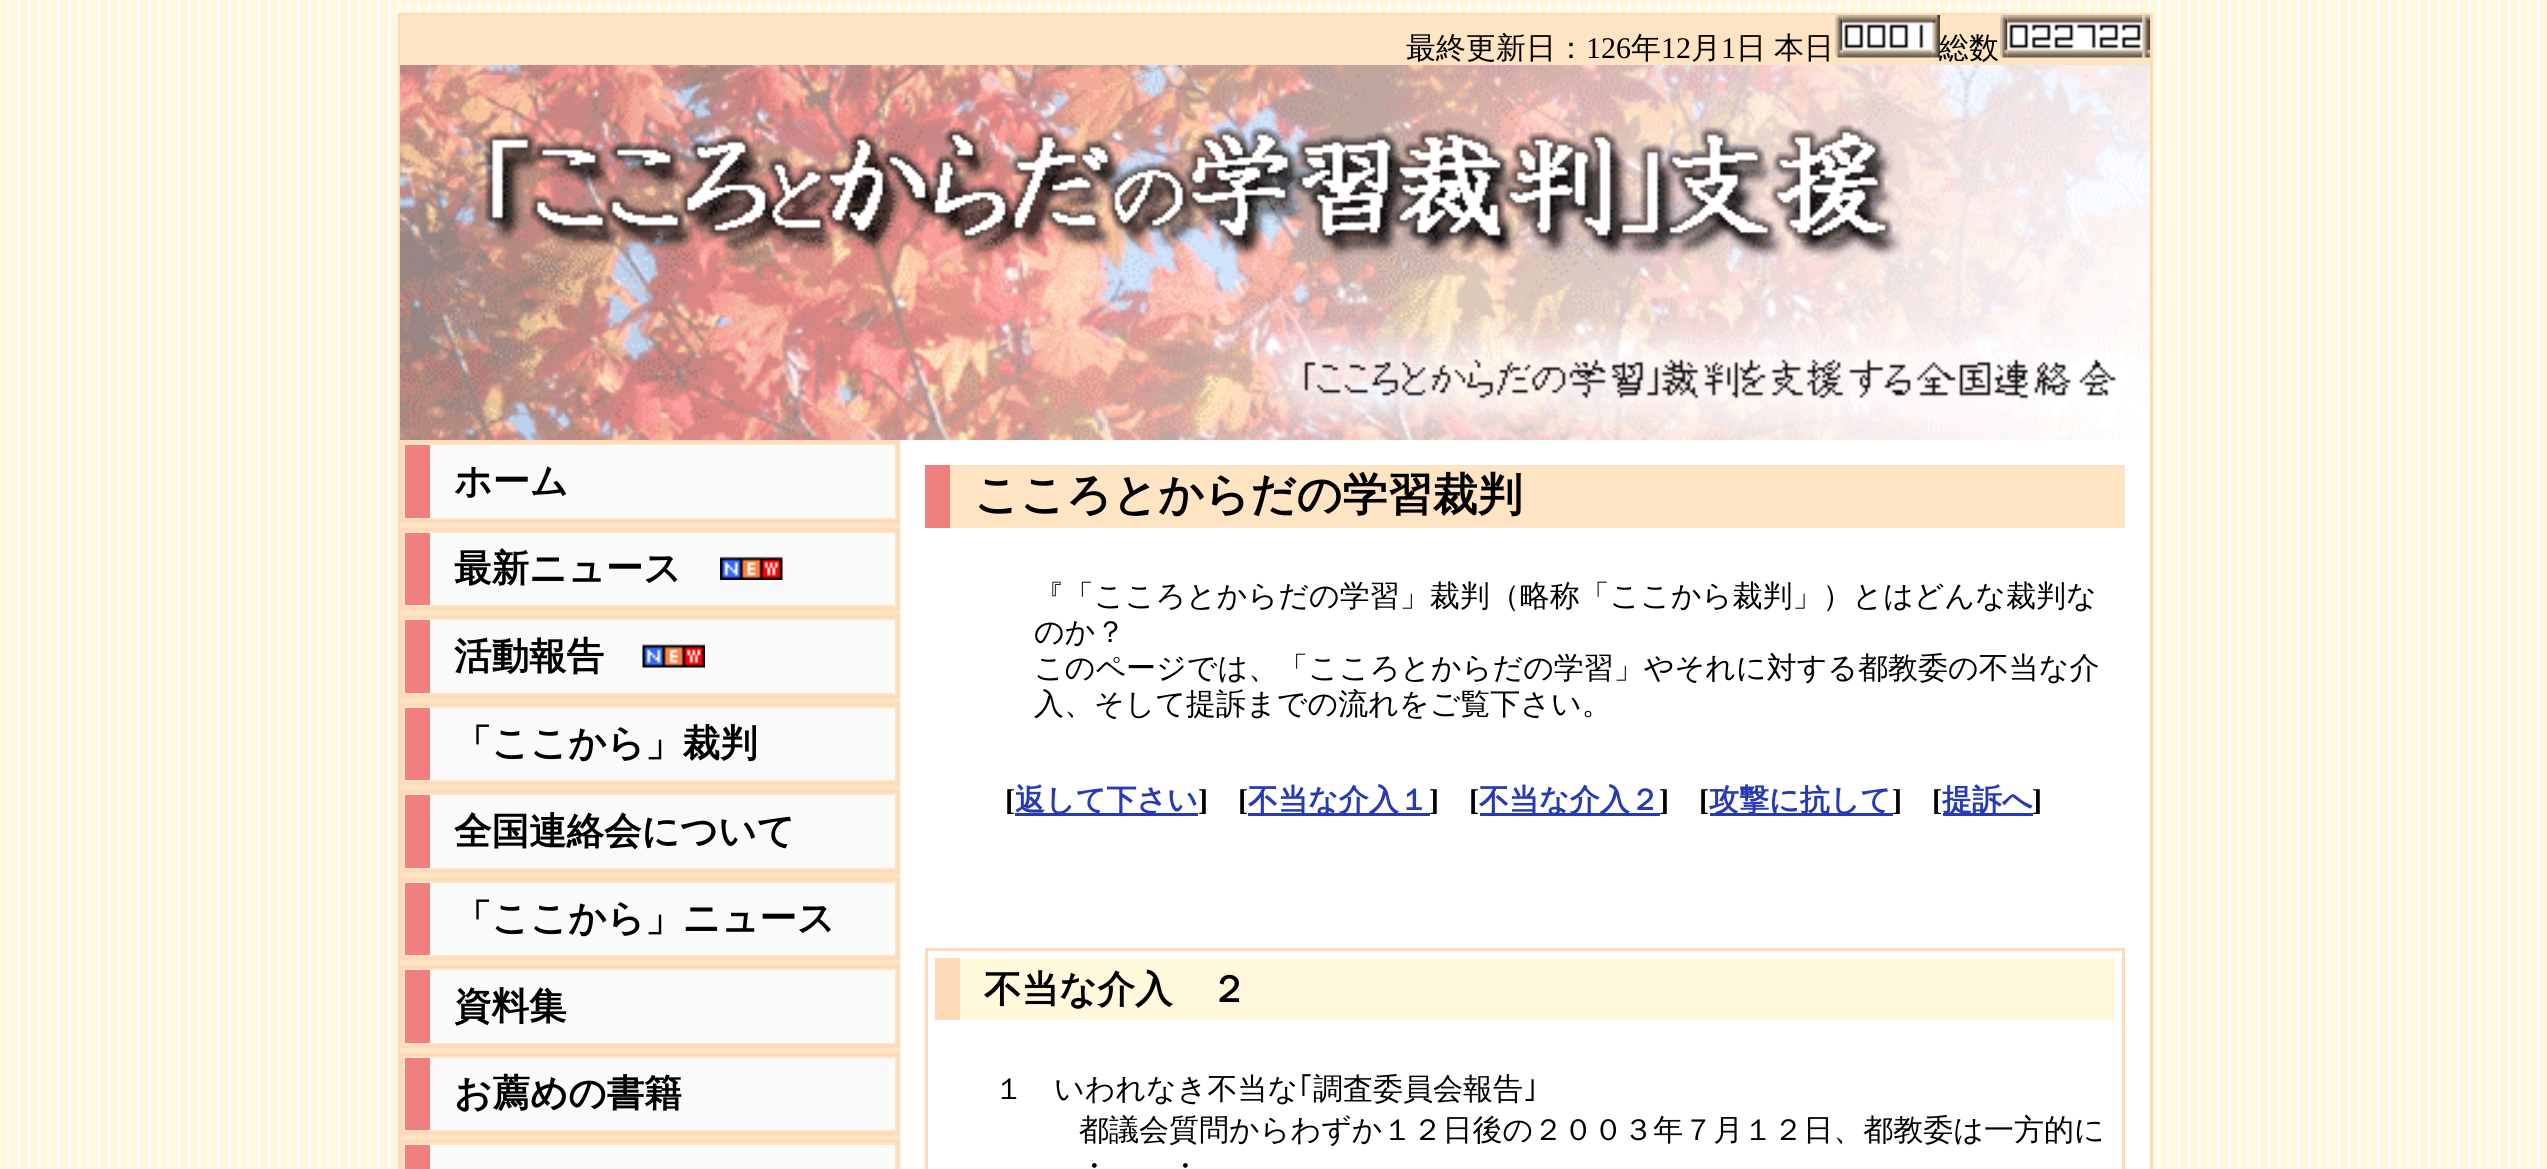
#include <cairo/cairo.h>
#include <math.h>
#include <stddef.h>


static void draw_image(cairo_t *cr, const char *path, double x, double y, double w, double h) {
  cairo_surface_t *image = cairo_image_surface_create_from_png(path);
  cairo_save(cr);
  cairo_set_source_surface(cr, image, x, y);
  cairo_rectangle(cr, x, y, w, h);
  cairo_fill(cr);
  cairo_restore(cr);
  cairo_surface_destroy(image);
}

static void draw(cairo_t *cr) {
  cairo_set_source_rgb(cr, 1, 248 / 255.0, 220 / 255.0);
  cairo_paint(cr);
  draw_image(cr, "images/1.png", 0, 0, 2541, 1169);
  cairo_rectangle(cr, 399.5, 14.5, 1752, 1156);
  cairo_set_source_rgb(cr, 1, 218 / 255.0, 185 / 255.0);
  cairo_set_line_width(cr, 3);
  cairo_stroke(cr);
  cairo_set_source_rgb(cr, 1, 228 / 255.0, 196 / 255.0);
  cairo_rectangle(cr, 400, 15, 1750, 50);
  cairo_fill(cr);
  draw_image(cr, "images/2.png", 1835, 15, 8, 43);
  draw_image(cr, "images/3.png", 1842, 15, 91, 43);
  draw_image(cr, "images/4.png", 1932, 15, 8, 43);
  draw_image(cr, "images/2.png", 2000, 15, 8, 43);
  draw_image(cr, "images/5.png", 2007, 15, 136, 43);
  draw_image(cr, "images/6.png", 2142, 15, 8, 43);
  draw_image(cr, "images/7.png", 400, 65, 1750, 375);
  cairo_set_source_rgb(cr, 1, 1, 1);
  cairo_rectangle(cr, 900, 440, 1250, 729);
  cairo_fill(cr);
  cairo_set_source_rgb(cr, 1, 228 / 255.0, 196 / 255.0);
  cairo_rectangle(cr, 400, 443, 500, 726);
  cairo_fill(cr);
  cairo_rectangle(cr, 401.5, 441.5, 497, 80);
  cairo_set_source_rgb(cr, 1, 218 / 255.0, 185 / 255.0);
  cairo_stroke(cr);
  cairo_set_source_rgb(cr, 250 / 255.0, 250 / 255.0, 250 / 255.0);
  cairo_rectangle(cr, 430, 445, 465, 73);
  cairo_fill(cr);
  cairo_set_source_rgb(cr, 240 / 255.0, 128 / 255.0, 128 / 255.0);
  cairo_rectangle(cr, 405, 445, 25, 73);
  cairo_fill(cr);
  cairo_rectangle(cr, 401.5, 529.5, 497, 79);
  cairo_set_source_rgb(cr, 1, 218 / 255.0, 185 / 255.0);
  cairo_stroke(cr);
  cairo_set_source_rgb(cr, 250 / 255.0, 250 / 255.0, 250 / 255.0);
  cairo_rectangle(cr, 430, 533, 465, 72);
  cairo_fill(cr);
  cairo_set_source_rgb(cr, 240 / 255.0, 128 / 255.0, 128 / 255.0);
  cairo_rectangle(cr, 405, 533, 25, 72);
  cairo_fill(cr);
  draw_image(cr, "images/8.png", 720, 556, 63, 24);
  cairo_rectangle(cr, 401.5, 616.5, 497, 80);
  cairo_set_source_rgb(cr, 1, 218 / 255.0, 185 / 255.0);
  cairo_stroke(cr);
  cairo_set_source_rgb(cr, 250 / 255.0, 250 / 255.0, 250 / 255.0);
  cairo_rectangle(cr, 430, 620, 465, 73);
  cairo_fill(cr);
  cairo_set_source_rgb(cr, 240 / 255.0, 128 / 255.0, 128 / 255.0);
  cairo_rectangle(cr, 405, 620, 25, 73);
  cairo_fill(cr);
  draw_image(cr, "images/9.png", 642, 644, 63, 24);
  cairo_rectangle(cr, 401.5, 704.5, 497, 79);
  cairo_set_source_rgb(cr, 1, 218 / 255.0, 185 / 255.0);
  cairo_stroke(cr);
  cairo_set_source_rgb(cr, 250 / 255.0, 250 / 255.0, 250 / 255.0);
  cairo_rectangle(cr, 430, 708, 465, 72);
  cairo_fill(cr);
  cairo_set_source_rgb(cr, 240 / 255.0, 128 / 255.0, 128 / 255.0);
  cairo_rectangle(cr, 405, 708, 25, 72);
  cairo_fill(cr);
  cairo_rectangle(cr, 401.5, 791.5, 497, 80);
  cairo_set_source_rgb(cr, 1, 218 / 255.0, 185 / 255.0);
  cairo_stroke(cr);
  cairo_set_source_rgb(cr, 250 / 255.0, 250 / 255.0, 250 / 255.0);
  cairo_rectangle(cr, 430, 795, 465, 73);
  cairo_fill(cr);
  cairo_set_source_rgb(cr, 240 / 255.0, 128 / 255.0, 128 / 255.0);
  cairo_rectangle(cr, 405, 795, 25, 73);
  cairo_fill(cr);
  cairo_rectangle(cr, 401.5, 879.5, 497, 79);
  cairo_set_source_rgb(cr, 1, 218 / 255.0, 185 / 255.0);
  cairo_stroke(cr);
  cairo_set_source_rgb(cr, 250 / 255.0, 250 / 255.0, 250 / 255.0);
  cairo_rectangle(cr, 430, 883, 465, 72);
  cairo_fill(cr);
  cairo_set_source_rgb(cr, 240 / 255.0, 128 / 255.0, 128 / 255.0);
  cairo_rectangle(cr, 405, 883, 25, 72);
  cairo_fill(cr);
  cairo_rectangle(cr, 401.5, 966.5, 497, 80);
  cairo_set_source_rgb(cr, 1, 218 / 255.0, 185 / 255.0);
  cairo_stroke(cr);
  cairo_set_source_rgb(cr, 250 / 255.0, 250 / 255.0, 250 / 255.0);
  cairo_rectangle(cr, 430, 970, 465, 73);
  cairo_fill(cr);
  cairo_set_source_rgb(cr, 240 / 255.0, 128 / 255.0, 128 / 255.0);
  cairo_rectangle(cr, 405, 970, 25, 73);
  cairo_fill(cr);
  cairo_rectangle(cr, 401.5, 1054.5, 497, 79);
  cairo_set_source_rgb(cr, 1, 218 / 255.0, 185 / 255.0);
  cairo_stroke(cr);
  cairo_set_source_rgb(cr, 250 / 255.0, 250 / 255.0, 250 / 255.0);
  cairo_rectangle(cr, 430, 1058, 465, 72);
  cairo_fill(cr);
  cairo_set_source_rgb(cr, 240 / 255.0, 128 / 255.0, 128 / 255.0);
  cairo_rectangle(cr, 405, 1058, 25, 72);
  cairo_fill(cr);
  cairo_rectangle(cr, 401.5, 1141.5, 497, 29);
  cairo_set_source_rgb(cr, 1, 218 / 255.0, 185 / 255.0);
  cairo_stroke(cr);
  cairo_set_source_rgb(cr, 250 / 255.0, 250 / 255.0, 250 / 255.0);
  cairo_rectangle(cr, 430, 1145, 465, 24);
  cairo_fill(cr);
  cairo_set_source_rgb(cr, 240 / 255.0, 128 / 255.0, 128 / 255.0);
  cairo_rectangle(cr, 405, 1145, 25, 24);
  cairo_fill(cr);
  cairo_set_source_rgb(cr, 1, 228 / 255.0, 196 / 255.0);
  cairo_rectangle(cr, 950, 465, 1175, 63);
  cairo_fill(cr);
  cairo_set_source_rgb(cr, 240 / 255.0, 128 / 255.0, 128 / 255.0);
  cairo_rectangle(cr, 925, 465, 25, 63);
  cairo_fill(cr);
  cairo_set_source_rgb(cr, 40 / 255.0, 57 / 255.0, 181 / 255.0);
  cairo_rectangle(cr, 1015, 813, 183, 3);
  cairo_fill(cr);
  cairo_rectangle(cr, 1248, 813, 182, 3);
  cairo_fill(cr);
  cairo_rectangle(cr, 1480, 813, 180, 3);
  cairo_fill(cr);
  cairo_rectangle(cr, 1710, 813, 183, 3);
  cairo_fill(cr);
  cairo_rectangle(cr, 1943, 813, 90, 3);
  cairo_fill(cr);
  cairo_rectangle(cr, 926.5, 949.5, 1197, 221);
  cairo_set_source_rgb(cr, 1, 218 / 255.0, 185 / 255.0);
  cairo_stroke(cr);
  cairo_set_source_rgb(cr, 1, 248 / 255.0, 220 / 255.0);
  cairo_rectangle(cr, 960, 958, 1155, 62);
  cairo_fill(cr);
  cairo_set_source_rgb(cr, 1, 218 / 255.0, 185 / 255.0);
  cairo_rectangle(cr, 935, 958, 25, 62);
  cairo_fill(cr);
  cairo_select_font_face(cr, "WenQuanYi Zen Hei Medium", CAIRO_FONT_SLANT_NORMAL, CAIRO_FONT_WEIGHT_NORMAL);
  cairo_set_font_size(cr, 30);
  cairo_set_source_rgb(cr, 0, 0, 0);
  cairo_move_to(cr, 1406, 58);
  cairo_show_text(cr, "最終更新日：");
  cairo_select_font_face(cr, "Liberation Serif", CAIRO_FONT_SLANT_NORMAL, CAIRO_FONT_WEIGHT_NORMAL);
  cairo_move_to(cr, 1586, 58);
  cairo_show_text(cr, "126");
  cairo_select_font_face(cr, "WenQuanYi Zen Hei Medium", CAIRO_FONT_SLANT_NORMAL, CAIRO_FONT_WEIGHT_NORMAL);
  cairo_move_to(cr, 1631, 58);
  cairo_show_text(cr, "年");
  cairo_select_font_face(cr, "Liberation Serif", CAIRO_FONT_SLANT_NORMAL, CAIRO_FONT_WEIGHT_NORMAL);
  cairo_move_to(cr, 1661, 58);
  cairo_show_text(cr, "12");
  cairo_select_font_face(cr, "WenQuanYi Zen Hei Medium", CAIRO_FONT_SLANT_NORMAL, CAIRO_FONT_WEIGHT_NORMAL);
  cairo_move_to(cr, 1691, 58);
  cairo_show_text(cr, "月");
  cairo_select_font_face(cr, "Liberation Serif", CAIRO_FONT_SLANT_NORMAL, CAIRO_FONT_WEIGHT_NORMAL);
  cairo_move_to(cr, 1721, 58);
  cairo_show_text(cr, "1");
  cairo_select_font_face(cr, "WenQuanYi Zen Hei Medium", CAIRO_FONT_SLANT_NORMAL, CAIRO_FONT_WEIGHT_NORMAL);
  cairo_move_to(cr, 1736, 58);
  cairo_show_text(cr, "日");
  cairo_move_to(cr, 1774, 58);
  cairo_show_text(cr, "本日");
  cairo_move_to(cr, 1939, 58);
  cairo_show_text(cr, "総数");
  cairo_select_font_face(cr, "WenQuanYi Zen Hei", CAIRO_FONT_SLANT_NORMAL, CAIRO_FONT_WEIGHT_BOLD);
  cairo_set_font_size(cr, 37.5);
  cairo_move_to(cr, 454, 494);
  cairo_show_text(cr, "ホーム");
  cairo_move_to(cr, 454, 581);
  cairo_show_text(cr, "最新ニュース");
  cairo_move_to(cr, 454, 669);
  cairo_show_text(cr, "活動報告");
  cairo_move_to(cr, 454, 756);
  cairo_show_text(cr, "「ここから」裁判");
  cairo_move_to(cr, 454, 844);
  cairo_show_text(cr, "全国連絡会について");
  cairo_move_to(cr, 454, 931);
  cairo_show_text(cr, "「ここから」ニュース");
  cairo_move_to(cr, 454, 1019);
  cairo_show_text(cr, "資料集");
  cairo_move_to(cr, 454, 1106);
  cairo_show_text(cr, "お薦めの書籍");
  cairo_set_font_size(cr, 45);
  cairo_move_to(cr, 974, 510);
  cairo_show_text(cr, "こころとからだの学習裁判");
  cairo_select_font_face(cr, "WenQuanYi Zen Hei Medium", CAIRO_FONT_SLANT_NORMAL, CAIRO_FONT_WEIGHT_NORMAL);
  cairo_set_font_size(cr, 30);
  cairo_move_to(cr, 1034, 606);
  cairo_show_text(cr, "『「こころとからだの学習」裁判（略称「ここから裁判」）とはどんな裁判な");
  cairo_move_to(cr, 1034, 642);
  cairo_show_text(cr, "のか？");
  cairo_move_to(cr, 1034, 678);
  cairo_show_text(cr, "このページでは、「こころとからだの学習」やそれに対する都教委の不当な介");
  cairo_move_to(cr, 1034, 714);
  cairo_show_text(cr, "入、そして提訴までの流れをご覧下さい。");
  cairo_select_font_face(cr, "Liberation Serif", CAIRO_FONT_SLANT_NORMAL, CAIRO_FONT_WEIGHT_BOLD);
  cairo_move_to(cr, 1005, 810);
  cairo_show_text(cr, "[");
  cairo_select_font_face(cr, "WenQuanYi Zen Hei", CAIRO_FONT_SLANT_NORMAL, CAIRO_FONT_WEIGHT_BOLD);
  cairo_set_source_rgb(cr, 40 / 255.0, 57 / 255.0, 181 / 255.0);
  cairo_move_to(cr, 1015, 810);
  cairo_show_text(cr, "返して下さい");
  cairo_select_font_face(cr, "Liberation Serif", CAIRO_FONT_SLANT_NORMAL, CAIRO_FONT_WEIGHT_BOLD);
  cairo_set_source_rgb(cr, 0, 0, 0);
  cairo_move_to(cr, 1198, 810);
  cairo_show_text(cr, "]");
  cairo_move_to(cr, 1238, 810);
  cairo_show_text(cr, "[");
  cairo_select_font_face(cr, "WenQuanYi Zen Hei", CAIRO_FONT_SLANT_NORMAL, CAIRO_FONT_WEIGHT_BOLD);
  cairo_set_source_rgb(cr, 40 / 255.0, 57 / 255.0, 181 / 255.0);
  cairo_move_to(cr, 1248, 810);
  cairo_show_text(cr, "不当な介入１");
  cairo_select_font_face(cr, "Liberation Serif", CAIRO_FONT_SLANT_NORMAL, CAIRO_FONT_WEIGHT_BOLD);
  cairo_set_source_rgb(cr, 0, 0, 0);
  cairo_move_to(cr, 1429, 810);
  cairo_show_text(cr, "]");
  cairo_move_to(cr, 1469, 810);
  cairo_show_text(cr, "[");
  cairo_select_font_face(cr, "WenQuanYi Zen Hei", CAIRO_FONT_SLANT_NORMAL, CAIRO_FONT_WEIGHT_BOLD);
  cairo_set_source_rgb(cr, 40 / 255.0, 57 / 255.0, 181 / 255.0);
  cairo_move_to(cr, 1479, 810);
  cairo_show_text(cr, "不当な介入２");
  cairo_select_font_face(cr, "Liberation Serif", CAIRO_FONT_SLANT_NORMAL, CAIRO_FONT_WEIGHT_BOLD);
  cairo_set_source_rgb(cr, 0, 0, 0);
  cairo_move_to(cr, 1659, 810);
  cairo_show_text(cr, "]");
  cairo_move_to(cr, 1699, 810);
  cairo_show_text(cr, "[");
  cairo_select_font_face(cr, "WenQuanYi Zen Hei", CAIRO_FONT_SLANT_NORMAL, CAIRO_FONT_WEIGHT_BOLD);
  cairo_set_source_rgb(cr, 40 / 255.0, 57 / 255.0, 181 / 255.0);
  cairo_move_to(cr, 1709, 810);
  cairo_show_text(cr, "攻撃に抗して");
  cairo_select_font_face(cr, "Liberation Serif", CAIRO_FONT_SLANT_NORMAL, CAIRO_FONT_WEIGHT_BOLD);
  cairo_set_source_rgb(cr, 0, 0, 0);
  cairo_move_to(cr, 1892, 810);
  cairo_show_text(cr, "]");
  cairo_move_to(cr, 1932, 810);
  cairo_show_text(cr, "[");
  cairo_select_font_face(cr, "WenQuanYi Zen Hei", CAIRO_FONT_SLANT_NORMAL, CAIRO_FONT_WEIGHT_BOLD);
  cairo_set_source_rgb(cr, 40 / 255.0, 57 / 255.0, 181 / 255.0);
  cairo_move_to(cr, 1942, 810);
  cairo_show_text(cr, "提訴へ");
  cairo_select_font_face(cr, "Liberation Serif", CAIRO_FONT_SLANT_NORMAL, CAIRO_FONT_WEIGHT_BOLD);
  cairo_set_source_rgb(cr, 0, 0, 0);
  cairo_move_to(cr, 2032, 810);
  cairo_show_text(cr, "]");
  cairo_select_font_face(cr, "WenQuanYi Zen Hei", CAIRO_FONT_SLANT_NORMAL, CAIRO_FONT_WEIGHT_BOLD);
  cairo_set_font_size(cr, 37.5);
  cairo_move_to(cr, 984, 1002);
  cairo_show_text(cr, "不当な介入　２");
  cairo_select_font_face(cr, "WenQuanYi Zen Hei Medium", CAIRO_FONT_SLANT_NORMAL, CAIRO_FONT_WEIGHT_NORMAL);
  cairo_set_font_size(cr, 30);
  cairo_move_to(cr, 994, 1099);
  cairo_show_text(cr, "１　いわれなき不当な");
  cairo_select_font_face(cr, "IPAPGothic", CAIRO_FONT_SLANT_NORMAL, CAIRO_FONT_WEIGHT_NORMAL);
  cairo_move_to(cr, 1298, 1099);
  cairo_show_text(cr, "｢");
  cairo_select_font_face(cr, "WenQuanYi Zen Hei Medium", CAIRO_FONT_SLANT_NORMAL, CAIRO_FONT_WEIGHT_NORMAL);
  cairo_move_to(cr, 1313, 1099);
  cairo_show_text(cr, "調査委員会報告");
  cairo_select_font_face(cr, "IPAPGothic", CAIRO_FONT_SLANT_NORMAL, CAIRO_FONT_WEIGHT_NORMAL);
  cairo_move_to(cr, 1523, 1099);
  cairo_show_text(cr, "｣");
  cairo_select_font_face(cr, "WenQuanYi Zen Hei Medium", CAIRO_FONT_SLANT_NORMAL, CAIRO_FONT_WEIGHT_NORMAL);
  cairo_move_to(cr, 1079, 1140);
  cairo_show_text(cr, "都議会質問からわずか１２日後の２００３年７月１２日、都教委は一方的に");
  cairo_move_to(cr, 1079, 1176);
  cairo_show_text(cr, "・");
  cairo_move_to(cr, 1170, 1176);
  cairo_show_text(cr, "・");
}

int main(void) {
  cairo_surface_t *surface = cairo_image_surface_create(CAIRO_FORMAT_RGB24, 2547, 1169);
  cairo_t *cr = cairo_create(surface);
  cairo_font_options_t *options = cairo_font_options_create();
  cairo_font_options_set_hint_metrics(options, CAIRO_HINT_METRICS_OFF);
  cairo_font_options_set_hint_style(options, CAIRO_HINT_STYLE_NONE);
  cairo_set_font_options(cr, options);
  cairo_set_miter_limit(cr, 4);
  draw(cr);
  cairo_surface_write_to_png(surface, "out.png");
  cairo_font_options_destroy(options);
  cairo_destroy(cr);
  cairo_surface_destroy(surface);
  return 0;
}
